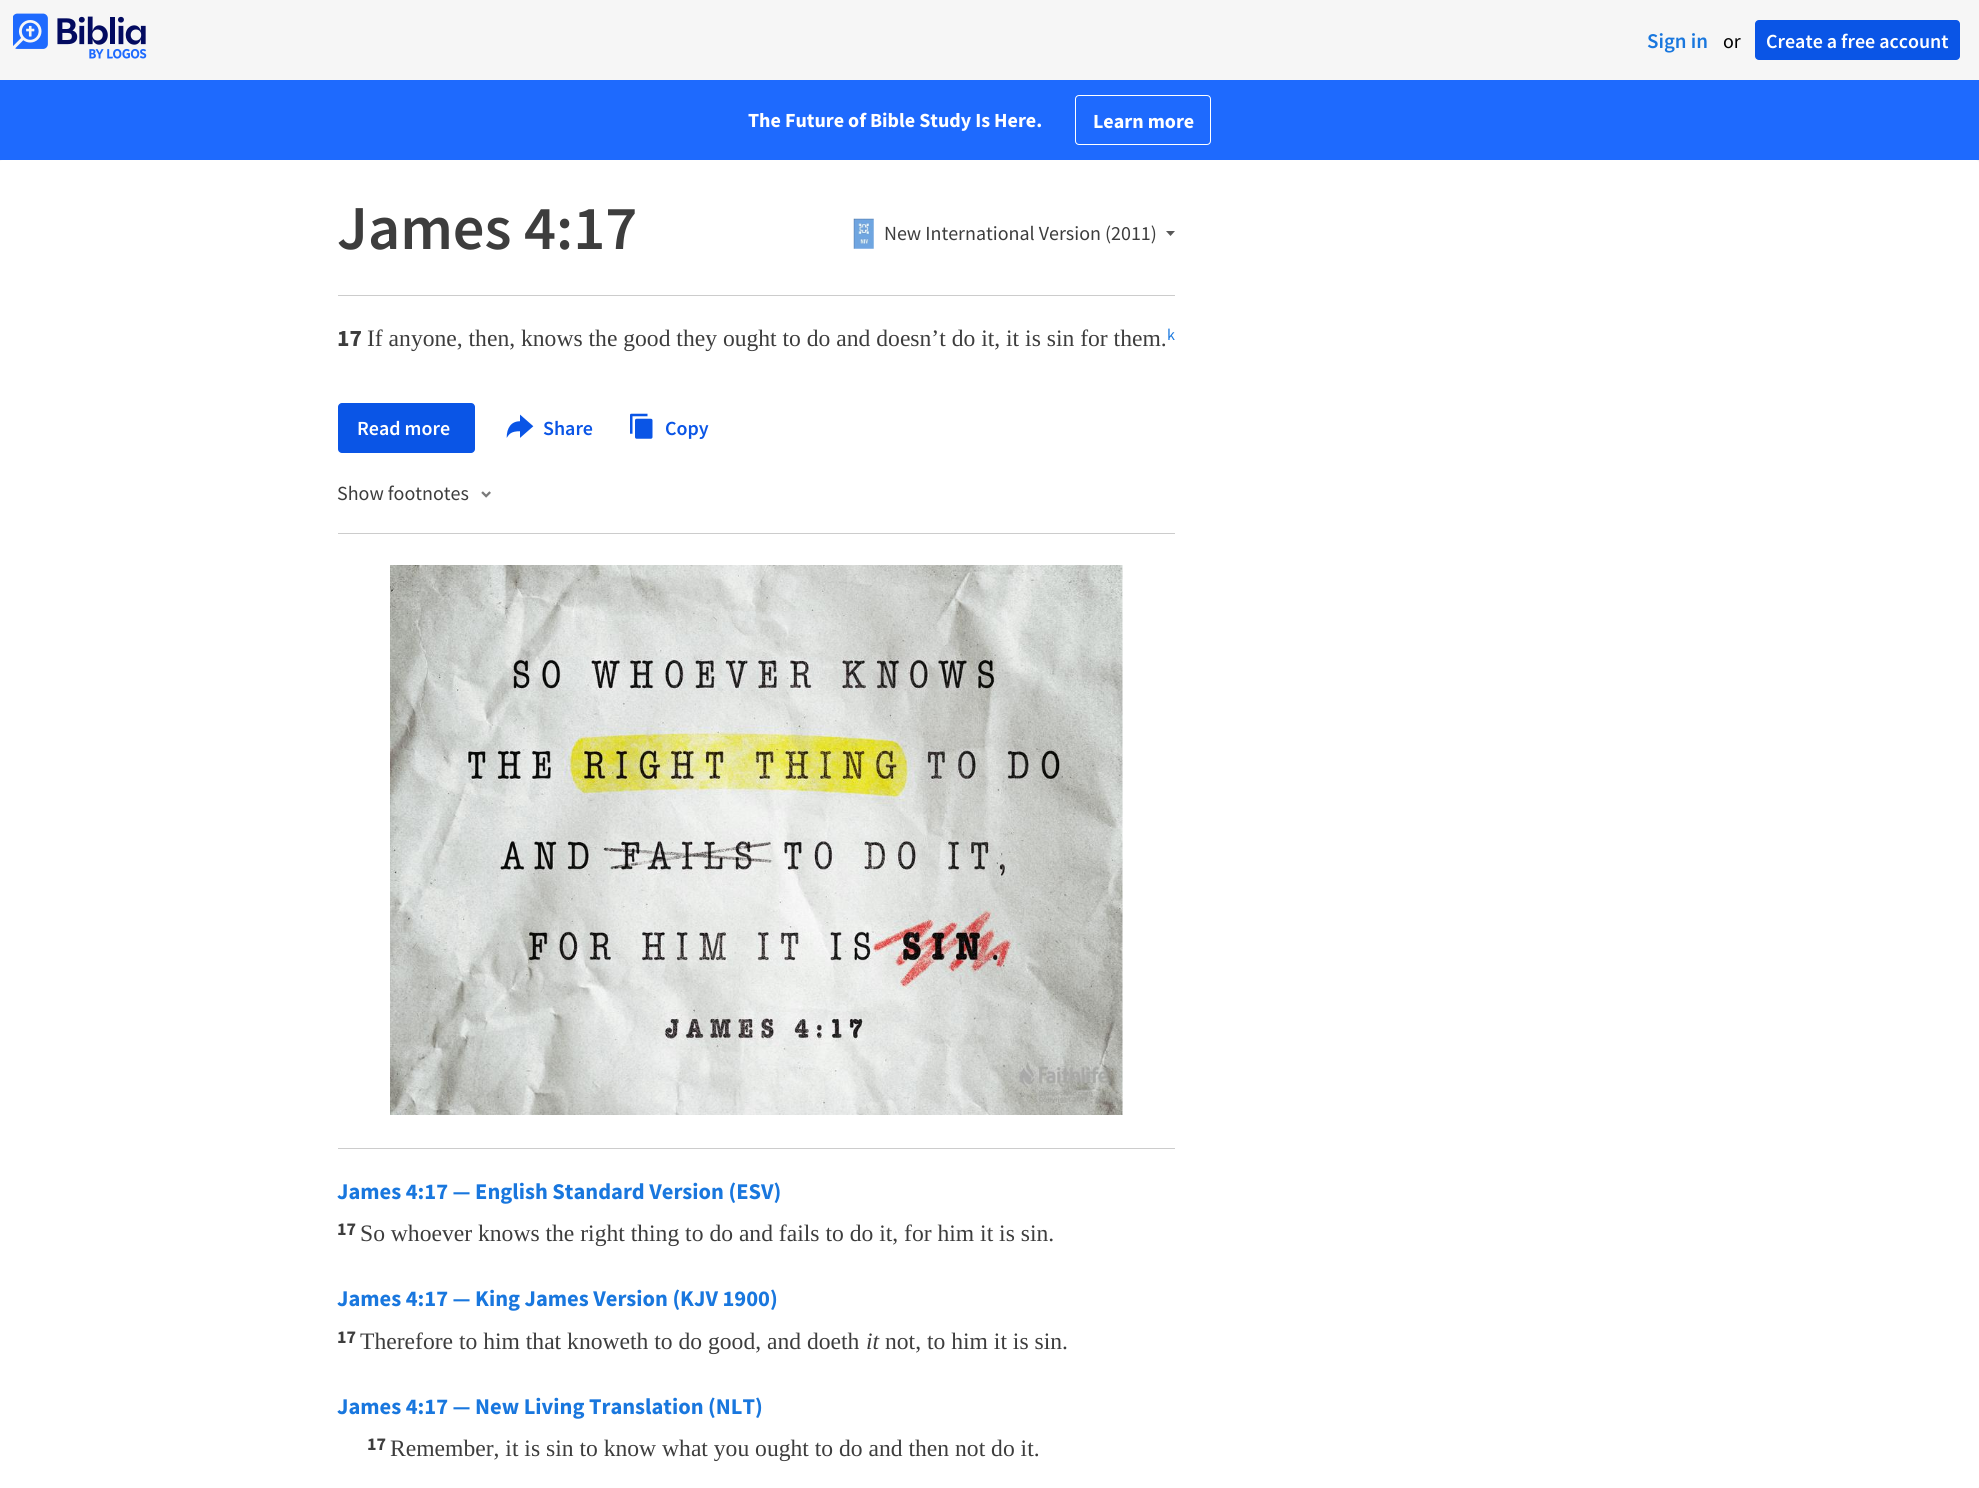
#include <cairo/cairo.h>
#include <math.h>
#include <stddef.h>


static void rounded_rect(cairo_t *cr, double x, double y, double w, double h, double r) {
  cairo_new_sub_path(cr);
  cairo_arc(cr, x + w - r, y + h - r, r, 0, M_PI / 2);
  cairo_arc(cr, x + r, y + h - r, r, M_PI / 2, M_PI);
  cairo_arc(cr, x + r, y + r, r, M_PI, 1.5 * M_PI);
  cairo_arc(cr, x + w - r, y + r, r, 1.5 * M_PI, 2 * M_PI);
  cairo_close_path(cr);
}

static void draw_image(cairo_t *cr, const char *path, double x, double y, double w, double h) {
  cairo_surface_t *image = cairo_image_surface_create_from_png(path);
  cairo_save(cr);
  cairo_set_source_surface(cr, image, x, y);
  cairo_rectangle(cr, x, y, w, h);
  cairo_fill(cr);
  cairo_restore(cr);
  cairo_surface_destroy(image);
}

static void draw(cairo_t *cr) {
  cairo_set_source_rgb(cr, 246 / 255.0, 246 / 255.0, 246 / 255.0);
  cairo_paint(cr);
  draw_image(cr, "images/1.png", 13, 13, 134, 46);
  cairo_set_source_rgb(cr, 10 / 255.0, 85 / 255.0, 230 / 255.0);
  rounded_rect(cr, 1755, 20, 205, 40, 4);
  cairo_fill(cr);
  cairo_set_source_rgb(cr, 30 / 255.0, 106 / 255.0, 254 / 255.0);
  cairo_rectangle(cr, 0, 80, 1979, 80);
  cairo_fill(cr);
  rounded_rect(cr, 1075.5, 95.5, 135, 49, 3.5);
  cairo_set_source_rgb(cr, 1, 1, 1);
  cairo_set_line_width(cr, 1);
  cairo_stroke(cr);
  rounded_rect(cr, -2, 160, 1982, 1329, 5);
  cairo_fill(cr);
  cairo_set_source_rgb(cr, 204 / 255.0, 204 / 255.0, 204 / 255.0);
  cairo_rectangle(cr, 338, 295, 837, 1);
  cairo_fill(cr);
  draw_image(cr, "images/2.png", 853, 218, 21, 31);
  cairo_set_source_rgb(cr, 88 / 255.0, 88 / 255.0, 88 / 255.0);
  cairo_set_fill_rule(cr, CAIRO_FILL_RULE_EVEN_ODD);
  cairo_new_path(cr);
  cairo_move_to(cr, 1170.5, 236);
  cairo_line_to(cr, 1175, 231);
  cairo_line_to(cr, 1166, 231);
  cairo_close_path(cr);
  cairo_fill(cr);
  cairo_set_source_rgb(cr, 10 / 255.0, 85 / 255.0, 230 / 255.0);
  rounded_rect(cr, 338, 403, 137, 50, 4);
  cairo_fill(cr);
  draw_image(cr, "images/3.png", 506, 414, 28, 24);
  draw_image(cr, "images/4.png", 630, 413, 23, 26);
  draw_image(cr, "images/5.png", 481, 491, 10, 7);
  cairo_set_source_rgb(cr, 204 / 255.0, 204 / 255.0, 204 / 255.0);
  cairo_rectangle(cr, 338, 533, 837, 1);
  cairo_fill(cr);
  draw_image(cr, "images/6.png", 390, 565, 733, 550);
  cairo_rectangle(cr, 338, 1148, 837, 1);
  cairo_fill(cr);
  cairo_select_font_face(cr, "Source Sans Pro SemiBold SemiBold", CAIRO_FONT_SLANT_NORMAL, CAIRO_FONT_WEIGHT_NORMAL);
  cairo_set_font_size(cr, 21);
  cairo_set_source_rgb(cr, 25 / 255.0, 119 / 255.0, 222 / 255.0);
  cairo_move_to(cr, 1647, 48);
  cairo_show_text(cr, "Sign in");
  cairo_select_font_face(cr, "Source Sans Pro", CAIRO_FONT_SLANT_NORMAL, CAIRO_FONT_WEIGHT_NORMAL);
  cairo_set_font_size(cr, 20);
  cairo_set_source_rgb(cr, 0, 0, 0);
  cairo_move_to(cr, 1723, 48);
  cairo_show_text(cr, "or");
  cairo_select_font_face(cr, "Source Sans Pro SemiBold SemiBold", CAIRO_FONT_SLANT_NORMAL, CAIRO_FONT_WEIGHT_NORMAL);
  cairo_set_source_rgb(cr, 1, 1, 1);
  cairo_move_to(cr, 1766, 48);
  cairo_show_text(cr, "Create a free account");
  cairo_select_font_face(cr, "Source Sans Pro", CAIRO_FONT_SLANT_NORMAL, CAIRO_FONT_WEIGHT_BOLD);
  cairo_move_to(cr, 748, 127);
  cairo_show_text(cr, "The Future of Bible Study Is Here.");
  cairo_move_to(cr, 1093, 128);
  cairo_show_text(cr, "Learn more");
  cairo_select_font_face(cr, "Source Sans Pro SemiBold SemiBold", CAIRO_FONT_SLANT_NORMAL, CAIRO_FONT_WEIGHT_NORMAL);
  cairo_set_font_size(cr, 62.5);
  cairo_set_source_rgb(cr, 61 / 255.0, 61 / 255.0, 61 / 255.0);
  cairo_move_to(cr, 337, 249);
  cairo_show_text(cr, "James 4:17");
  cairo_select_font_face(cr, "Source Sans Pro", CAIRO_FONT_SLANT_NORMAL, CAIRO_FONT_WEIGHT_NORMAL);
  cairo_set_font_size(cr, 20);
  cairo_move_to(cr, 884, 240);
  cairo_show_text(cr, "New International Version (2011)");
  cairo_select_font_face(cr, "Source Sans Pro", CAIRO_FONT_SLANT_NORMAL, CAIRO_FONT_WEIGHT_BOLD);
  cairo_set_font_size(cr, 23.6);
  cairo_move_to(cr, 337, 346);
  cairo_show_text(cr, "17");
  cairo_select_font_face(cr, "Liberation Serif", CAIRO_FONT_SLANT_NORMAL, CAIRO_FONT_WEIGHT_NORMAL);
  cairo_move_to(cr, 367, 346);
  cairo_show_text(cr, "If anyone, then, knows the good they ought to do and doesn’t do it, it is sin for them.");
  cairo_select_font_face(cr, "Source Sans Pro", CAIRO_FONT_SLANT_NORMAL, CAIRO_FONT_WEIGHT_NORMAL);
  cairo_set_font_size(cr, 16);
  cairo_set_source_rgb(cr, 25 / 255.0, 119 / 255.0, 222 / 255.0);
  cairo_move_to(cr, 1167, 340);
  cairo_show_text(cr, "k");
  cairo_select_font_face(cr, "Source Sans Pro SemiBold SemiBold", CAIRO_FONT_SLANT_NORMAL, CAIRO_FONT_WEIGHT_NORMAL);
  cairo_set_font_size(cr, 20);
  cairo_set_source_rgb(cr, 1, 1, 1);
  cairo_move_to(cr, 357, 435);
  cairo_show_text(cr, "Read more");
  cairo_set_source_rgb(cr, 10 / 255.0, 85 / 255.0, 230 / 255.0);
  cairo_move_to(cr, 543, 435);
  cairo_show_text(cr, "Share");
  cairo_move_to(cr, 665, 435);
  cairo_show_text(cr, "Copy");
  cairo_select_font_face(cr, "Source Sans Pro", CAIRO_FONT_SLANT_NORMAL, CAIRO_FONT_WEIGHT_NORMAL);
  cairo_set_source_rgb(cr, 61 / 255.0, 61 / 255.0, 61 / 255.0);
  cairo_move_to(cr, 337, 500);
  cairo_show_text(cr, "Show footnotes");
  cairo_select_font_face(cr, "Source Sans Pro", CAIRO_FONT_SLANT_NORMAL, CAIRO_FONT_WEIGHT_BOLD);
  cairo_set_font_size(cr, 22.5);
  cairo_set_source_rgb(cr, 25 / 255.0, 119 / 255.0, 222 / 255.0);
  cairo_move_to(cr, 337, 1199);
  cairo_show_text(cr, "James 4:17 — English Standard Version (ESV)");
  cairo_set_font_size(cr, 18);
  cairo_set_source_rgb(cr, 61 / 255.0, 61 / 255.0, 61 / 255.0);
  cairo_move_to(cr, 337, 1235);
  cairo_show_text(cr, "17");
  cairo_select_font_face(cr, "Liberation Serif", CAIRO_FONT_SLANT_NORMAL, CAIRO_FONT_WEIGHT_NORMAL);
  cairo_set_font_size(cr, 23.6);
  cairo_move_to(cr, 360, 1241);
  cairo_show_text(cr, "So whoever knows the right thing to do and fails to do it, for him it is sin.");
  cairo_select_font_face(cr, "Source Sans Pro", CAIRO_FONT_SLANT_NORMAL, CAIRO_FONT_WEIGHT_BOLD);
  cairo_set_font_size(cr, 22.5);
  cairo_set_source_rgb(cr, 25 / 255.0, 119 / 255.0, 222 / 255.0);
  cairo_move_to(cr, 337, 1306);
  cairo_show_text(cr, "James 4:17 — King James Version (KJV 1900)");
  cairo_set_font_size(cr, 18);
  cairo_set_source_rgb(cr, 61 / 255.0, 61 / 255.0, 61 / 255.0);
  cairo_move_to(cr, 337, 1343);
  cairo_show_text(cr, "17");
  cairo_select_font_face(cr, "Liberation Serif", CAIRO_FONT_SLANT_NORMAL, CAIRO_FONT_WEIGHT_NORMAL);
  cairo_set_font_size(cr, 23.6);
  cairo_move_to(cr, 360, 1349);
  cairo_show_text(cr, "Therefore to him that knoweth to do good, and doeth");
  cairo_select_font_face(cr, "Liberation Serif", CAIRO_FONT_SLANT_ITALIC, CAIRO_FONT_WEIGHT_NORMAL);
  cairo_move_to(cr, 866, 1349);
  cairo_show_text(cr, "it");
  cairo_select_font_face(cr, "Liberation Serif", CAIRO_FONT_SLANT_NORMAL, CAIRO_FONT_WEIGHT_NORMAL);
  cairo_move_to(cr, 885, 1349);
  cairo_show_text(cr, "not, to him it is sin.");
  cairo_select_font_face(cr, "Source Sans Pro", CAIRO_FONT_SLANT_NORMAL, CAIRO_FONT_WEIGHT_BOLD);
  cairo_set_font_size(cr, 22.5);
  cairo_set_source_rgb(cr, 25 / 255.0, 119 / 255.0, 222 / 255.0);
  cairo_move_to(cr, 337, 1414);
  cairo_show_text(cr, "James 4:17 — New Living Translation (NLT)");
  cairo_set_font_size(cr, 18);
  cairo_set_source_rgb(cr, 61 / 255.0, 61 / 255.0, 61 / 255.0);
  cairo_move_to(cr, 367, 1450);
  cairo_show_text(cr, "17");
  cairo_select_font_face(cr, "Liberation Serif", CAIRO_FONT_SLANT_NORMAL, CAIRO_FONT_WEIGHT_NORMAL);
  cairo_set_font_size(cr, 23.6);
  cairo_move_to(cr, 390, 1456);
  cairo_show_text(cr, "Remember, it is sin to know what you ought to do and then not do it.");
}

int main(void) {
  cairo_surface_t *surface = cairo_image_surface_create(CAIRO_FORMAT_RGB24, 1979, 1488);
  cairo_t *cr = cairo_create(surface);
  cairo_font_options_t *options = cairo_font_options_create();
  cairo_font_options_set_hint_metrics(options, CAIRO_HINT_METRICS_OFF);
  cairo_font_options_set_hint_style(options, CAIRO_HINT_STYLE_NONE);
  cairo_set_font_options(cr, options);
  cairo_set_miter_limit(cr, 4);
  draw(cr);
  cairo_surface_write_to_png(surface, "out.png");
  cairo_font_options_destroy(options);
  cairo_destroy(cr);
  cairo_surface_destroy(surface);
  return 0;
}
